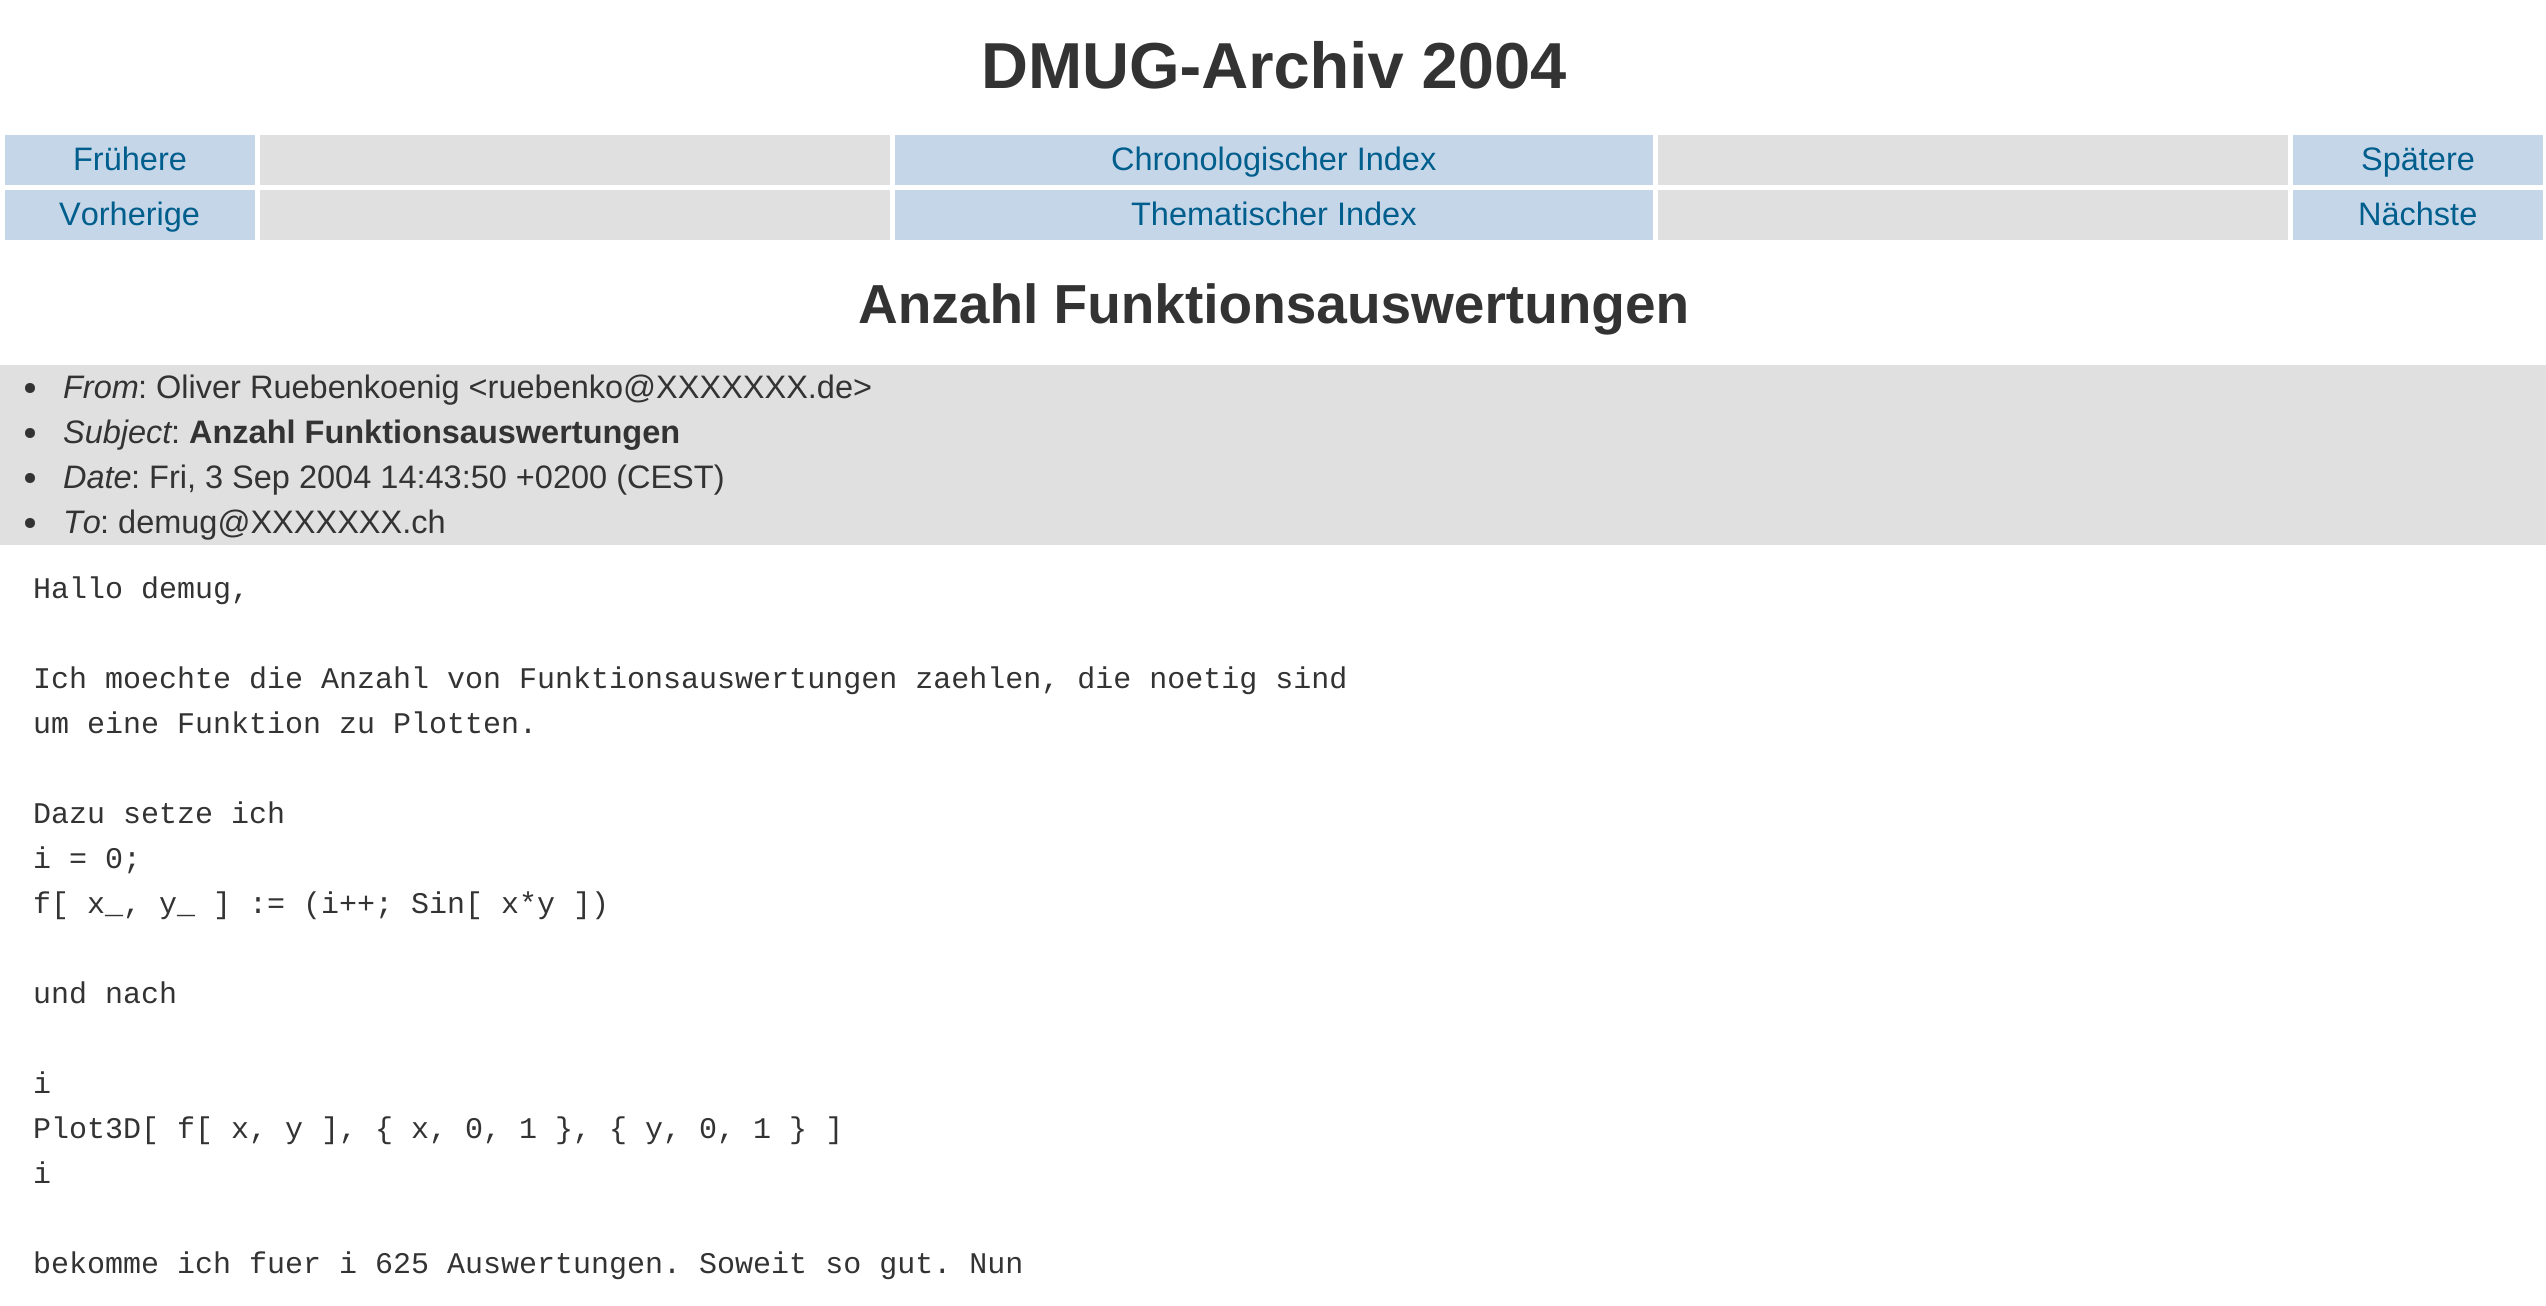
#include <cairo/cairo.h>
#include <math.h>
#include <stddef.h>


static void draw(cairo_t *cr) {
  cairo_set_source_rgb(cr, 1, 1, 1);
  cairo_paint(cr);
  cairo_set_source_rgb(cr, 198 / 255.0, 214 / 255.0, 233 / 255.0);
  cairo_rectangle(cr, 5, 135, 250, 50);
  cairo_fill(cr);
  cairo_set_source_rgb(cr, 224 / 255.0, 224 / 255.0, 224 / 255.0);
  cairo_rectangle(cr, 260, 135, 630, 50);
  cairo_fill(cr);
  cairo_set_source_rgb(cr, 198 / 255.0, 214 / 255.0, 233 / 255.0);
  cairo_rectangle(cr, 895, 135, 758, 50);
  cairo_fill(cr);
  cairo_set_source_rgb(cr, 224 / 255.0, 224 / 255.0, 224 / 255.0);
  cairo_rectangle(cr, 1658, 135, 630, 50);
  cairo_fill(cr);
  cairo_set_source_rgb(cr, 198 / 255.0, 214 / 255.0, 233 / 255.0);
  cairo_rectangle(cr, 2293, 135, 250, 50);
  cairo_fill(cr);
  cairo_rectangle(cr, 5, 190, 250, 50);
  cairo_fill(cr);
  cairo_set_source_rgb(cr, 224 / 255.0, 224 / 255.0, 224 / 255.0);
  cairo_rectangle(cr, 260, 190, 630, 50);
  cairo_fill(cr);
  cairo_set_source_rgb(cr, 198 / 255.0, 214 / 255.0, 233 / 255.0);
  cairo_rectangle(cr, 895, 190, 758, 50);
  cairo_fill(cr);
  cairo_set_source_rgb(cr, 224 / 255.0, 224 / 255.0, 224 / 255.0);
  cairo_rectangle(cr, 1658, 190, 630, 50);
  cairo_fill(cr);
  cairo_set_source_rgb(cr, 198 / 255.0, 214 / 255.0, 233 / 255.0);
  cairo_rectangle(cr, 2293, 190, 250, 50);
  cairo_fill(cr);
  cairo_set_source_rgb(cr, 224 / 255.0, 224 / 255.0, 224 / 255.0);
  cairo_rectangle(cr, 0, 365, 2546, 180);
  cairo_fill(cr);
  cairo_set_source_rgb(cr, 51 / 255.0, 51 / 255.0, 51 / 255.0);
  cairo_arc(cr, 30, 388, 5, 0, 2 * M_PI);
  cairo_fill(cr);
  cairo_arc(cr, 30, 433, 5, 0, 2 * M_PI);
  cairo_fill(cr);
  cairo_arc(cr, 30, 478, 5, 0, 2 * M_PI);
  cairo_fill(cr);
  cairo_arc(cr, 30, 523, 5, 0, 2 * M_PI);
  cairo_fill(cr);
  cairo_select_font_face(cr, "Liberation Sans", CAIRO_FONT_SLANT_NORMAL, CAIRO_FONT_WEIGHT_BOLD);
  cairo_set_font_size(cr, 65);
  cairo_move_to(cr, 981, 88);
  cairo_show_text(cr, "DMUG-Archiv 2004");
  cairo_select_font_face(cr, "Liberation Sans", CAIRO_FONT_SLANT_NORMAL, CAIRO_FONT_WEIGHT_NORMAL);
  cairo_set_font_size(cr, 32.5);
  cairo_set_source_rgb(cr, 0, 94 / 255.0, 141 / 255.0);
  cairo_move_to(cr, 73, 170);
  cairo_show_text(cr, "Frühere");
  cairo_move_to(cr, 1111, 170);
  cairo_show_text(cr, "Chronologischer Index");
  cairo_move_to(cr, 2361, 170);
  cairo_show_text(cr, "Spätere");
  cairo_move_to(cr, 59, 225);
  cairo_show_text(cr, "Vorherige");
  cairo_move_to(cr, 1131, 225);
  cairo_show_text(cr, "Thematischer Index");
  cairo_move_to(cr, 2358, 225);
  cairo_show_text(cr, "Nächste");
  cairo_select_font_face(cr, "Liberation Sans", CAIRO_FONT_SLANT_NORMAL, CAIRO_FONT_WEIGHT_BOLD);
  cairo_set_font_size(cr, 55);
  cairo_set_source_rgb(cr, 51 / 255.0, 51 / 255.0, 51 / 255.0);
  cairo_move_to(cr, 858, 323);
  cairo_show_text(cr, "Anzahl Funktionsauswertungen");
  cairo_select_font_face(cr, "Liberation Sans", CAIRO_FONT_SLANT_ITALIC, CAIRO_FONT_WEIGHT_NORMAL);
  cairo_set_font_size(cr, 32.5);
  cairo_move_to(cr, 63, 398);
  cairo_show_text(cr, "From");
  cairo_select_font_face(cr, "Liberation Sans", CAIRO_FONT_SLANT_NORMAL, CAIRO_FONT_WEIGHT_NORMAL);
  cairo_move_to(cr, 138, 398);
  cairo_show_text(cr, ": Oliver Ruebenkoenig <ruebenko@XXXXXXX.de>");
  cairo_select_font_face(cr, "Liberation Sans", CAIRO_FONT_SLANT_ITALIC, CAIRO_FONT_WEIGHT_NORMAL);
  cairo_move_to(cr, 63, 443);
  cairo_show_text(cr, "Subject");
  cairo_select_font_face(cr, "Liberation Sans", CAIRO_FONT_SLANT_NORMAL, CAIRO_FONT_WEIGHT_NORMAL);
  cairo_move_to(cr, 171, 443);
  cairo_show_text(cr, ":");
  cairo_select_font_face(cr, "Liberation Sans", CAIRO_FONT_SLANT_NORMAL, CAIRO_FONT_WEIGHT_BOLD);
  cairo_move_to(cr, 189, 443);
  cairo_show_text(cr, "Anzahl Funktionsauswertungen");
  cairo_select_font_face(cr, "Liberation Sans", CAIRO_FONT_SLANT_ITALIC, CAIRO_FONT_WEIGHT_NORMAL);
  cairo_move_to(cr, 63, 488);
  cairo_show_text(cr, "Date");
  cairo_select_font_face(cr, "Liberation Sans", CAIRO_FONT_SLANT_NORMAL, CAIRO_FONT_WEIGHT_NORMAL);
  cairo_move_to(cr, 131, 488);
  cairo_show_text(cr, ": Fri, 3 Sep 2004 14:43:50 +0200 (CEST)");
  cairo_select_font_face(cr, "Liberation Sans", CAIRO_FONT_SLANT_ITALIC, CAIRO_FONT_WEIGHT_NORMAL);
  cairo_move_to(cr, 63, 533);
  cairo_show_text(cr, "To");
  cairo_select_font_face(cr, "Liberation Sans", CAIRO_FONT_SLANT_NORMAL, CAIRO_FONT_WEIGHT_NORMAL);
  cairo_move_to(cr, 100, 533);
  cairo_show_text(cr, ": demug@XXXXXXX.ch");
  cairo_select_font_face(cr, "Liberation Mono", CAIRO_FONT_SLANT_NORMAL, CAIRO_FONT_WEIGHT_NORMAL);
  cairo_set_font_size(cr, 30);
  cairo_move_to(cr, 33, 598);
  cairo_show_text(cr, "Hallo demug,");
  cairo_move_to(cr, 33, 688);
  cairo_show_text(cr, "Ich moechte die Anzahl von Funktionsauswertungen zaehlen, die noetig sind");
  cairo_move_to(cr, 33, 733);
  cairo_show_text(cr, "um eine Funktion zu Plotten.");
  cairo_move_to(cr, 33, 823);
  cairo_show_text(cr, "Dazu setze ich");
  cairo_move_to(cr, 33, 868);
  cairo_show_text(cr, "i = 0;");
  cairo_move_to(cr, 33, 913);
  cairo_show_text(cr, "f[ x_, y_ ] := (i++; Sin[ x*y ])");
  cairo_move_to(cr, 33, 1003);
  cairo_show_text(cr, "und nach");
  cairo_move_to(cr, 33, 1093);
  cairo_show_text(cr, "i");
  cairo_move_to(cr, 33, 1138);
  cairo_show_text(cr, "Plot3D[ f[ x, y ], { x, 0, 1 }, { y, 0, 1 } ]");
  cairo_move_to(cr, 33, 1183);
  cairo_show_text(cr, "i");
  cairo_move_to(cr, 33, 1273);
  cairo_show_text(cr, "bekomme ich fuer i 625 Auswertungen. Soweit so gut. Nun");
}

int main(void) {
  cairo_surface_t *surface = cairo_image_surface_create(CAIRO_FORMAT_RGB24, 2546, 1306);
  cairo_t *cr = cairo_create(surface);
  cairo_font_options_t *options = cairo_font_options_create();
  cairo_font_options_set_hint_metrics(options, CAIRO_HINT_METRICS_OFF);
  cairo_font_options_set_hint_style(options, CAIRO_HINT_STYLE_NONE);
  cairo_set_font_options(cr, options);
  cairo_set_miter_limit(cr, 4);
  draw(cr);
  cairo_surface_write_to_png(surface, "out.png");
  cairo_font_options_destroy(options);
  cairo_destroy(cr);
  cairo_surface_destroy(surface);
  return 0;
}
